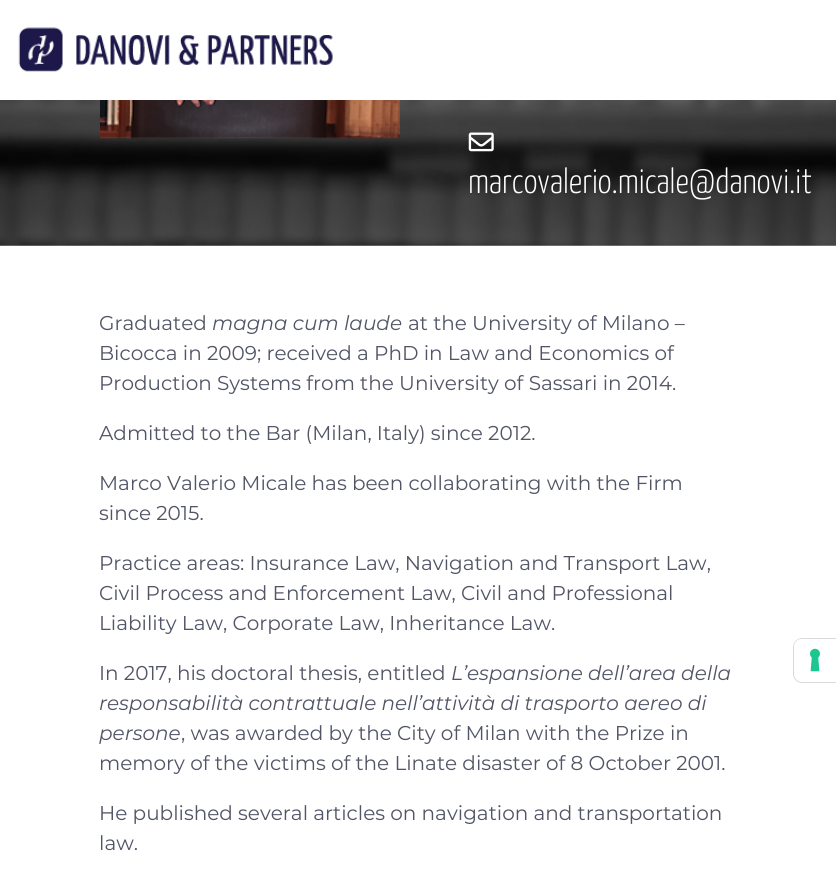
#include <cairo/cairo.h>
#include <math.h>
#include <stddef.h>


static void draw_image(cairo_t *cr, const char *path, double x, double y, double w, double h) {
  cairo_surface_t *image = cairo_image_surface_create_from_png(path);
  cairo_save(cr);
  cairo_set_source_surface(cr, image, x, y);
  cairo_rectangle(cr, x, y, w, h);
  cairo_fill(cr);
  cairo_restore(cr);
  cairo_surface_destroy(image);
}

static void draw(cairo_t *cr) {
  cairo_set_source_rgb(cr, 1, 1, 1);
  cairo_paint(cr);
  draw_image(cr, "images/1.png", 18, 27, 315, 45);
  draw_image(cr, "images/2.png", 0, 100, 836, 146);
  draw_image(cr, "images/3.png", 100, 100, 300, 39);
  draw_image(cr, "images/4.png", 468, 132, 26, 20);
  cairo_new_path(cr);
  cairo_move_to(cr, 802, 638.5);
  cairo_line_to(cr, 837.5, 638.5);
  cairo_line_to(cr, 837.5, 682.5);
  cairo_line_to(cr, 802, 682.5);
  cairo_curve_to(cr, 797.5, 682.5, 793.5, 678.5, 793.5, 674);
  cairo_line_to(cr, 793.5, 647);
  cairo_curve_to(cr, 793.5, 642.5, 797.5, 638.5, 802, 638.5);
  cairo_close_path(cr);
  cairo_set_source_rgb(cr, 217 / 255.0, 217 / 255.0, 217 / 255.0);
  cairo_set_line_width(cr, 1);
  cairo_stroke(cr);
  cairo_set_source_rgb(cr, 1, 1, 1);
  cairo_new_path(cr);
  cairo_move_to(cr, 802, 639);
  cairo_line_to(cr, 836, 639);
  cairo_line_to(cr, 836, 681);
  cairo_line_to(cr, 802, 681);
  cairo_curve_to(cr, 797.5, 681, 794, 677.5, 794, 673);
  cairo_line_to(cr, 794, 647);
  cairo_curve_to(cr, 794, 642.5, 797.5, 639, 802, 639);
  cairo_close_path(cr);
  cairo_fill(cr);
  draw_image(cr, "images/5.png", 810, 648, 10, 24);
  cairo_select_font_face(cr, "Yanone Kaffeesatz Light", CAIRO_FONT_SLANT_NORMAL, CAIRO_FONT_WEIGHT_NORMAL);
  cairo_set_font_size(cr, 35);
  cairo_move_to(cr, 468, 193);
  cairo_show_text(cr, "marcovalerio.micale@danovi.it");
  cairo_select_font_face(cr, "Montserrat", CAIRO_FONT_SLANT_NORMAL, CAIRO_FONT_WEIGHT_NORMAL);
  cairo_set_font_size(cr, 20);
  cairo_set_source_rgb(cr, 82 / 255.0, 85 / 255.0, 102 / 255.0);
  cairo_move_to(cr, 99, 330);
  cairo_show_text(cr, "Graduated");
  cairo_select_font_face(cr, "Montserrat Thin", CAIRO_FONT_SLANT_ITALIC, CAIRO_FONT_WEIGHT_NORMAL);
  cairo_move_to(cr, 212, 330);
  cairo_show_text(cr, "magna cum laude");
  cairo_select_font_face(cr, "Montserrat", CAIRO_FONT_SLANT_NORMAL, CAIRO_FONT_WEIGHT_NORMAL);
  cairo_move_to(cr, 408, 330);
  cairo_show_text(cr, "at the University of Milano –");
  cairo_move_to(cr, 99, 360);
  cairo_show_text(cr, "Bicocca in 2009; received a PhD in Law and Economics of");
  cairo_move_to(cr, 99, 390);
  cairo_show_text(cr, "Production Systems from the University of Sassari in 2014.");
  cairo_move_to(cr, 99, 440);
  cairo_show_text(cr, "Admitted to the Bar (Milan, Italy) since 2012.");
  cairo_move_to(cr, 99, 490);
  cairo_show_text(cr, "Marco Valerio Micale has been collaborating with the Firm");
  cairo_move_to(cr, 99, 520);
  cairo_show_text(cr, "since 2015.");
  cairo_move_to(cr, 99, 570);
  cairo_show_text(cr, "Practice areas: Insurance Law, Navigation and Transport Law,");
  cairo_move_to(cr, 99, 600);
  cairo_show_text(cr, "Civil Process and Enforcement Law, Civil and Professional");
  cairo_move_to(cr, 99, 630);
  cairo_show_text(cr, "Liability Law, Corporate Law, Inheritance Law.");
  cairo_move_to(cr, 99, 680);
  cairo_show_text(cr, "In 2017, his doctoral thesis, entitled");
  cairo_select_font_face(cr, "Montserrat Thin", CAIRO_FONT_SLANT_ITALIC, CAIRO_FONT_WEIGHT_NORMAL);
  cairo_move_to(cr, 451, 680);
  cairo_show_text(cr, "L’espansione dell’area della");
  cairo_move_to(cr, 99, 710);
  cairo_show_text(cr, "responsabilità contrattuale nell’attività di trasporto aereo di");
  cairo_move_to(cr, 99, 740);
  cairo_show_text(cr, "persone");
  cairo_select_font_face(cr, "Montserrat", CAIRO_FONT_SLANT_NORMAL, CAIRO_FONT_WEIGHT_NORMAL);
  cairo_move_to(cr, 181, 740);
  cairo_show_text(cr, ", was awarded by the City of Milan with the Prize in");
  cairo_move_to(cr, 99, 770);
  cairo_show_text(cr, "memory of the victims of the Linate disaster of 8 October 2001.");
  cairo_move_to(cr, 99, 820);
  cairo_show_text(cr, "He published several articles on navigation and transportation");
  cairo_move_to(cr, 99, 850);
  cairo_show_text(cr, "law.");
}

int main(void) {
  cairo_surface_t *surface = cairo_image_surface_create(CAIRO_FORMAT_RGB24, 836, 879);
  cairo_t *cr = cairo_create(surface);
  cairo_font_options_t *options = cairo_font_options_create();
  cairo_font_options_set_hint_metrics(options, CAIRO_HINT_METRICS_OFF);
  cairo_font_options_set_hint_style(options, CAIRO_HINT_STYLE_NONE);
  cairo_set_font_options(cr, options);
  cairo_set_miter_limit(cr, 4);
  draw(cr);
  cairo_surface_write_to_png(surface, "out.png");
  cairo_font_options_destroy(options);
  cairo_destroy(cr);
  cairo_surface_destroy(surface);
  return 0;
}
